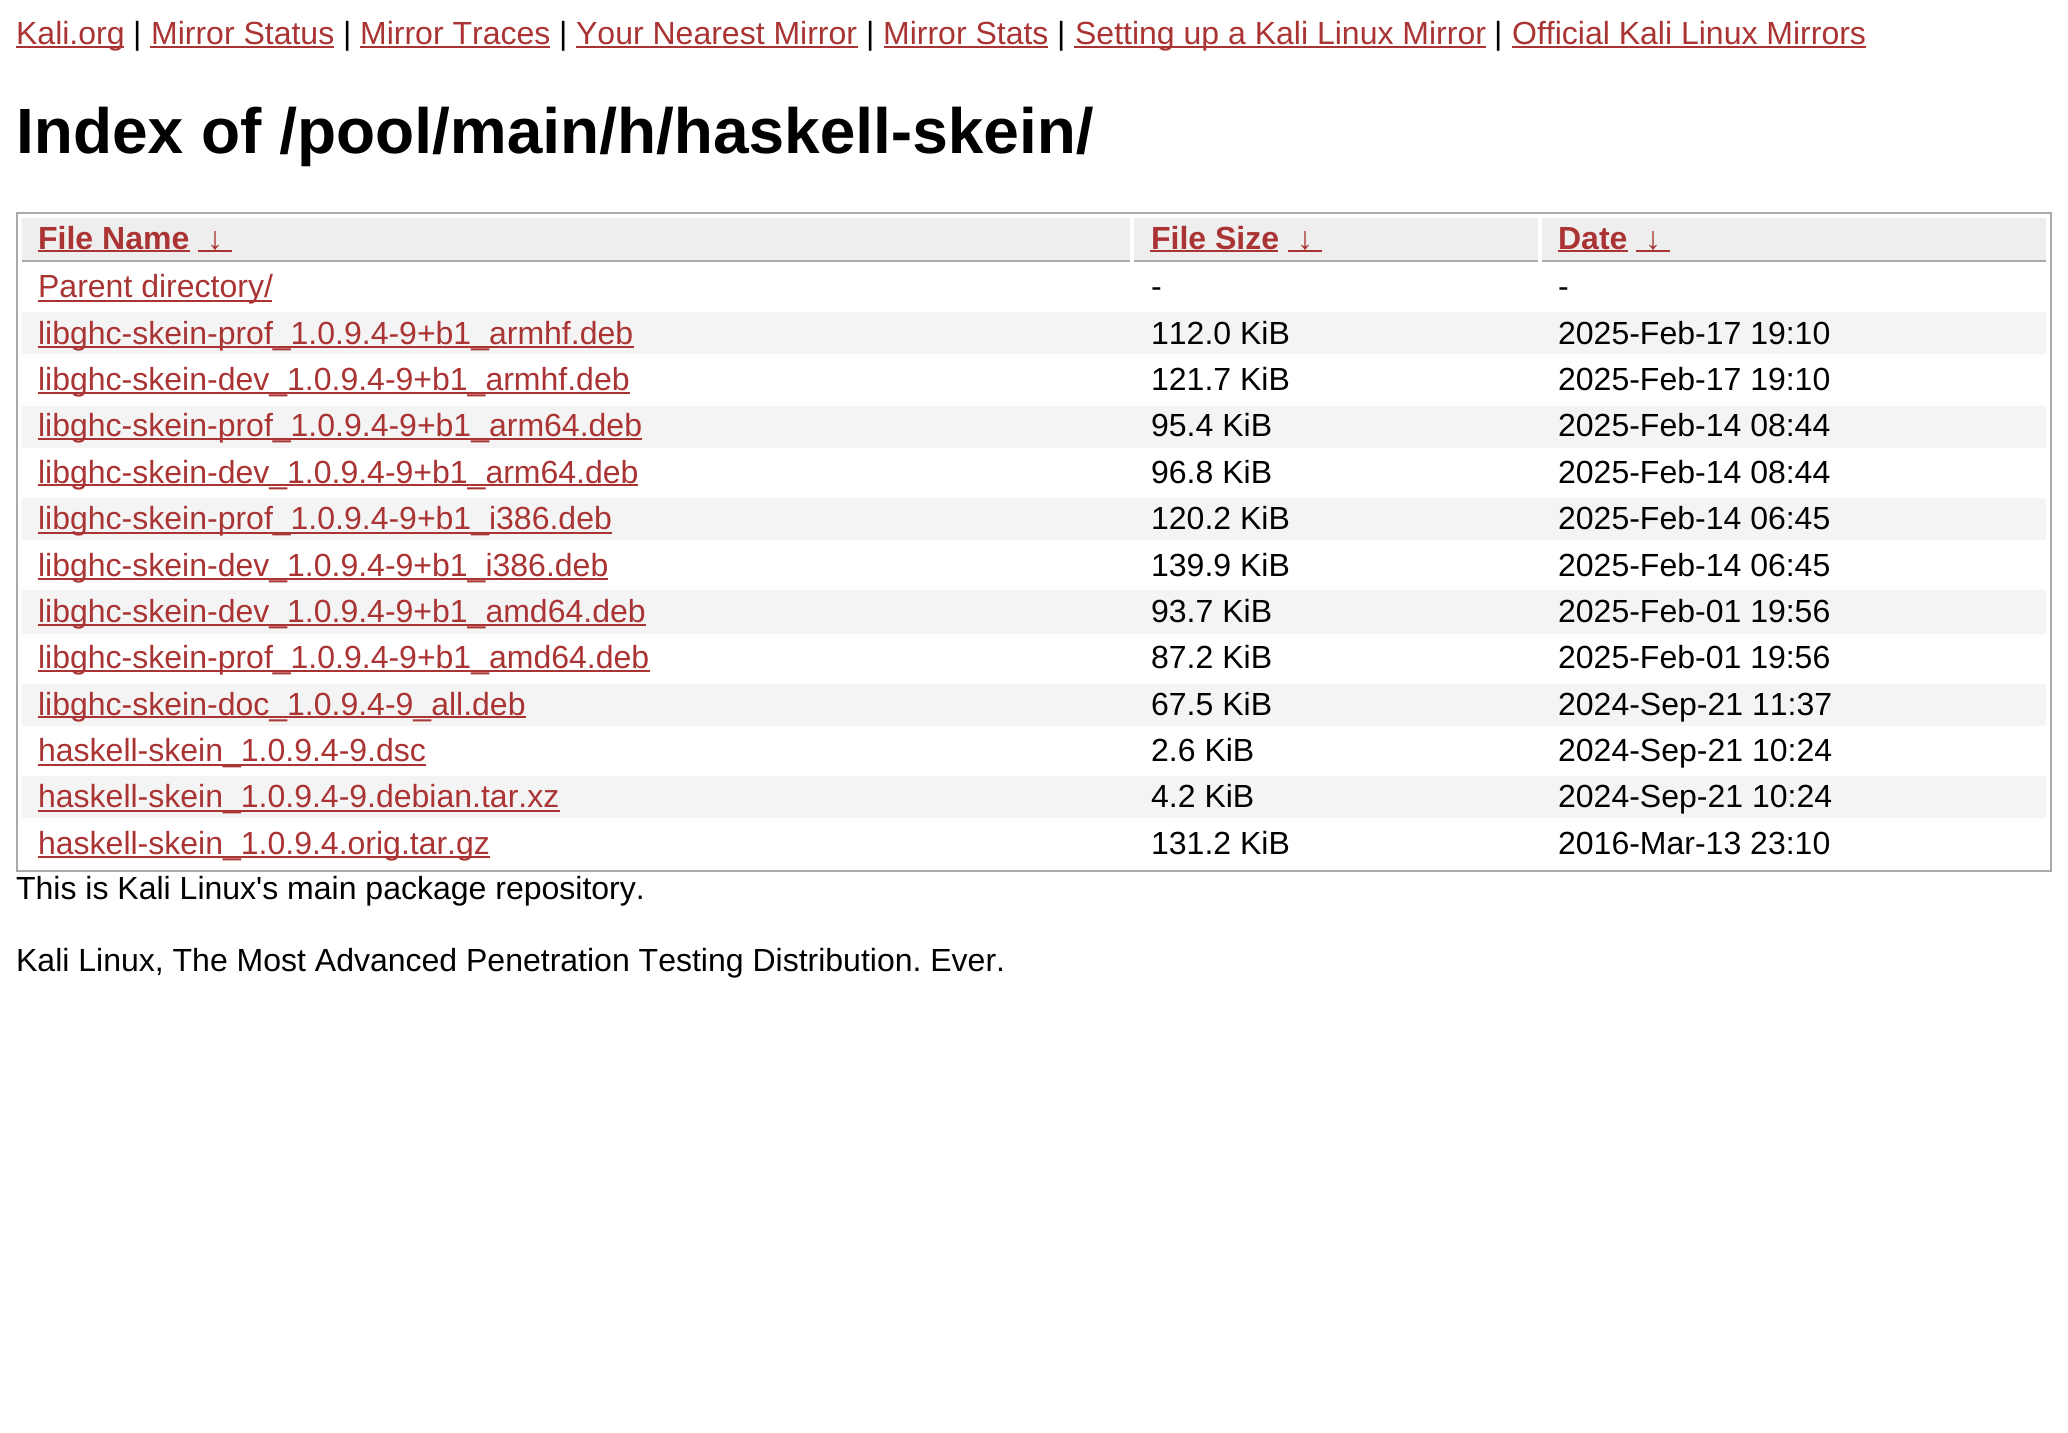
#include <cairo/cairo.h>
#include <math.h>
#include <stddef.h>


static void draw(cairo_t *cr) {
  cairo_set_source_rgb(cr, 1, 1, 1);
  cairo_paint(cr);
  cairo_set_source_rgb(cr, 170 / 255.0, 51 / 255.0, 51 / 255.0);
  cairo_rectangle(cr, 16, 46, 108, 2);
  cairo_fill(cr);
  cairo_rectangle(cr, 150, 46, 184, 2);
  cairo_fill(cr);
  cairo_rectangle(cr, 360, 46, 190, 2);
  cairo_fill(cr);
  cairo_rectangle(cr, 576, 46, 282, 2);
  cairo_fill(cr);
  cairo_rectangle(cr, 884, 46, 164, 2);
  cairo_fill(cr);
  cairo_rectangle(cr, 1074, 46, 412, 2);
  cairo_fill(cr);
  cairo_rectangle(cr, 1512, 46, 354, 2);
  cairo_fill(cr);
  cairo_rectangle(cr, 17, 213, 2034, 658);
  cairo_set_source_rgb(cr, 170 / 255.0, 170 / 255.0, 170 / 255.0);
  cairo_stroke(cr);
  cairo_set_source_rgb(cr, 238 / 255.0, 238 / 255.0, 238 / 255.0);
  cairo_rectangle(cr, 22, 218, 1108, 42);
  cairo_fill(cr);
  cairo_set_source_rgb(cr, 170 / 255.0, 170 / 255.0, 170 / 255.0);
  cairo_rectangle(cr, 22, 260, 1108, 2);
  cairo_fill(cr);
  cairo_set_source_rgb(cr, 170 / 255.0, 51 / 255.0, 51 / 255.0);
  cairo_rectangle(cr, 38, 250, 152, 2);
  cairo_fill(cr);
  cairo_rectangle(cr, 198, 250, 34, 2);
  cairo_fill(cr);
  cairo_set_source_rgb(cr, 238 / 255.0, 238 / 255.0, 238 / 255.0);
  cairo_rectangle(cr, 1134, 218, 404, 42);
  cairo_fill(cr);
  cairo_set_source_rgb(cr, 170 / 255.0, 170 / 255.0, 170 / 255.0);
  cairo_rectangle(cr, 1134, 260, 404, 2);
  cairo_fill(cr);
  cairo_set_source_rgb(cr, 170 / 255.0, 51 / 255.0, 51 / 255.0);
  cairo_rectangle(cr, 1150, 250, 128, 2);
  cairo_fill(cr);
  cairo_rectangle(cr, 1288, 250, 34, 2);
  cairo_fill(cr);
  cairo_set_source_rgb(cr, 238 / 255.0, 238 / 255.0, 238 / 255.0);
  cairo_rectangle(cr, 1542, 218, 504, 42);
  cairo_fill(cr);
  cairo_set_source_rgb(cr, 170 / 255.0, 170 / 255.0, 170 / 255.0);
  cairo_rectangle(cr, 1542, 260, 504, 2);
  cairo_fill(cr);
  cairo_set_source_rgb(cr, 170 / 255.0, 51 / 255.0, 51 / 255.0);
  cairo_rectangle(cr, 1558, 250, 70, 2);
  cairo_fill(cr);
  cairo_rectangle(cr, 1636, 250, 34, 2);
  cairo_fill(cr);
  cairo_rectangle(cr, 38, 300, 234, 2);
  cairo_fill(cr);
  cairo_set_source_rgb(cr, 244 / 255.0, 244 / 255.0, 244 / 255.0);
  cairo_rectangle(cr, 22, 312, 2024, 42);
  cairo_fill(cr);
  cairo_set_source_rgb(cr, 170 / 255.0, 51 / 255.0, 51 / 255.0);
  cairo_rectangle(cr, 38, 346, 596, 2);
  cairo_fill(cr);
  cairo_rectangle(cr, 38, 392, 592, 2);
  cairo_fill(cr);
  cairo_set_source_rgb(cr, 244 / 255.0, 244 / 255.0, 244 / 255.0);
  cairo_rectangle(cr, 22, 406, 2024, 42);
  cairo_fill(cr);
  cairo_set_source_rgb(cr, 170 / 255.0, 51 / 255.0, 51 / 255.0);
  cairo_rectangle(cr, 38, 438, 604, 2);
  cairo_fill(cr);
  cairo_rectangle(cr, 38, 484, 600, 2);
  cairo_fill(cr);
  cairo_set_source_rgb(cr, 244 / 255.0, 244 / 255.0, 244 / 255.0);
  cairo_rectangle(cr, 22, 498, 2024, 42);
  cairo_fill(cr);
  cairo_set_source_rgb(cr, 170 / 255.0, 51 / 255.0, 51 / 255.0);
  cairo_rectangle(cr, 38, 532, 574, 2);
  cairo_fill(cr);
  cairo_rectangle(cr, 38, 578, 570, 2);
  cairo_fill(cr);
  cairo_set_source_rgb(cr, 244 / 255.0, 244 / 255.0, 244 / 255.0);
  cairo_rectangle(cr, 22, 590, 2024, 44);
  cairo_fill(cr);
  cairo_set_source_rgb(cr, 170 / 255.0, 51 / 255.0, 51 / 255.0);
  cairo_rectangle(cr, 38, 624, 608, 2);
  cairo_fill(cr);
  cairo_rectangle(cr, 38, 670, 612, 2);
  cairo_fill(cr);
  cairo_set_source_rgb(cr, 244 / 255.0, 244 / 255.0, 244 / 255.0);
  cairo_rectangle(cr, 22, 684, 2024, 42);
  cairo_fill(cr);
  cairo_set_source_rgb(cr, 170 / 255.0, 51 / 255.0, 51 / 255.0);
  cairo_rectangle(cr, 38, 716, 488, 2);
  cairo_fill(cr);
  cairo_rectangle(cr, 38, 764, 388, 2);
  cairo_fill(cr);
  cairo_set_source_rgb(cr, 244 / 255.0, 244 / 255.0, 244 / 255.0);
  cairo_rectangle(cr, 22, 776, 2024, 42);
  cairo_fill(cr);
  cairo_set_source_rgb(cr, 170 / 255.0, 51 / 255.0, 51 / 255.0);
  cairo_rectangle(cr, 38, 810, 522, 2);
  cairo_fill(cr);
  cairo_rectangle(cr, 38, 856, 452, 2);
  cairo_fill(cr);
  cairo_select_font_face(cr, "Liberation Sans", CAIRO_FONT_SLANT_NORMAL, CAIRO_FONT_WEIGHT_NORMAL);
  cairo_set_font_size(cr, 32);
  cairo_move_to(cr, 16, 44);
  cairo_show_text(cr, "Kali.org");
  cairo_set_source_rgb(cr, 0, 0, 0);
  cairo_move_to(cr, 133, 44);
  cairo_show_text(cr, "|");
  cairo_set_source_rgb(cr, 170 / 255.0, 51 / 255.0, 51 / 255.0);
  cairo_move_to(cr, 151, 44);
  cairo_show_text(cr, "Mirror Status");
  cairo_set_source_rgb(cr, 0, 0, 0);
  cairo_move_to(cr, 343, 44);
  cairo_show_text(cr, "|");
  cairo_set_source_rgb(cr, 170 / 255.0, 51 / 255.0, 51 / 255.0);
  cairo_move_to(cr, 360, 44);
  cairo_show_text(cr, "Mirror Traces");
  cairo_set_source_rgb(cr, 0, 0, 0);
  cairo_move_to(cr, 559, 44);
  cairo_show_text(cr, "|");
  cairo_set_source_rgb(cr, 170 / 255.0, 51 / 255.0, 51 / 255.0);
  cairo_move_to(cr, 576, 44);
  cairo_show_text(cr, "Your Nearest Mirror");
  cairo_set_source_rgb(cr, 0, 0, 0);
  cairo_move_to(cr, 866, 44);
  cairo_show_text(cr, "|");
  cairo_set_source_rgb(cr, 170 / 255.0, 51 / 255.0, 51 / 255.0);
  cairo_move_to(cr, 883, 44);
  cairo_show_text(cr, "Mirror Stats");
  cairo_set_source_rgb(cr, 0, 0, 0);
  cairo_move_to(cr, 1057, 44);
  cairo_show_text(cr, "|");
  cairo_set_source_rgb(cr, 170 / 255.0, 51 / 255.0, 51 / 255.0);
  cairo_move_to(cr, 1075, 44);
  cairo_show_text(cr, "Setting up a Kali Linux Mirror");
  cairo_set_source_rgb(cr, 0, 0, 0);
  cairo_move_to(cr, 1494, 44);
  cairo_show_text(cr, "|");
  cairo_set_source_rgb(cr, 170 / 255.0, 51 / 255.0, 51 / 255.0);
  cairo_move_to(cr, 1512, 44);
  cairo_show_text(cr, "Official Kali Linux Mirrors");
  cairo_select_font_face(cr, "Liberation Sans", CAIRO_FONT_SLANT_NORMAL, CAIRO_FONT_WEIGHT_BOLD);
  cairo_set_font_size(cr, 64);
  cairo_set_source_rgb(cr, 0, 0, 0);
  cairo_move_to(cr, 16, 153);
  cairo_show_text(cr, "Index of /pool/main/h/haskell-skein/");
  cairo_set_font_size(cr, 32);
  cairo_set_source_rgb(cr, 170 / 255.0, 51 / 255.0, 51 / 255.0);
  cairo_move_to(cr, 38, 249);
  cairo_show_text(cr, "File Name");
  cairo_move_to(cr, 207, 249);
  cairo_show_text(cr, "↓");
  cairo_move_to(cr, 1151, 249);
  cairo_show_text(cr, "File Size");
  cairo_move_to(cr, 1297, 249);
  cairo_show_text(cr, "↓");
  cairo_move_to(cr, 1558, 249);
  cairo_show_text(cr, "Date");
  cairo_move_to(cr, 1645, 249);
  cairo_show_text(cr, "↓");
  cairo_select_font_face(cr, "Liberation Sans", CAIRO_FONT_SLANT_NORMAL, CAIRO_FONT_WEIGHT_NORMAL);
  cairo_move_to(cr, 38, 297);
  cairo_show_text(cr, "Parent directory/");
  cairo_set_source_rgb(cr, 0, 0, 0);
  cairo_move_to(cr, 1151, 297);
  cairo_show_text(cr, "-");
  cairo_move_to(cr, 1558, 297);
  cairo_show_text(cr, "-");
  cairo_set_source_rgb(cr, 170 / 255.0, 51 / 255.0, 51 / 255.0);
  cairo_move_to(cr, 38, 344);
  cairo_show_text(cr, "libghc-skein-prof_1.0.9.4-9+b1_armhf.deb");
  cairo_set_source_rgb(cr, 0, 0, 0);
  cairo_move_to(cr, 1151, 344);
  cairo_show_text(cr, "112.0 KiB");
  cairo_move_to(cr, 1558, 344);
  cairo_show_text(cr, "2025-Feb-17 19:10");
  cairo_set_source_rgb(cr, 170 / 255.0, 51 / 255.0, 51 / 255.0);
  cairo_move_to(cr, 38, 390);
  cairo_show_text(cr, "libghc-skein-dev_1.0.9.4-9+b1_armhf.deb");
  cairo_set_source_rgb(cr, 0, 0, 0);
  cairo_move_to(cr, 1151, 390);
  cairo_show_text(cr, "121.7 KiB");
  cairo_move_to(cr, 1558, 390);
  cairo_show_text(cr, "2025-Feb-17 19:10");
  cairo_set_source_rgb(cr, 170 / 255.0, 51 / 255.0, 51 / 255.0);
  cairo_move_to(cr, 38, 436);
  cairo_show_text(cr, "libghc-skein-prof_1.0.9.4-9+b1_arm64.deb");
  cairo_set_source_rgb(cr, 0, 0, 0);
  cairo_move_to(cr, 1151, 436);
  cairo_show_text(cr, "95.4 KiB");
  cairo_move_to(cr, 1558, 436);
  cairo_show_text(cr, "2025-Feb-14 08:44");
  cairo_set_source_rgb(cr, 170 / 255.0, 51 / 255.0, 51 / 255.0);
  cairo_move_to(cr, 38, 483);
  cairo_show_text(cr, "libghc-skein-dev_1.0.9.4-9+b1_arm64.deb");
  cairo_set_source_rgb(cr, 0, 0, 0);
  cairo_move_to(cr, 1151, 483);
  cairo_show_text(cr, "96.8 KiB");
  cairo_move_to(cr, 1558, 483);
  cairo_show_text(cr, "2025-Feb-14 08:44");
  cairo_set_source_rgb(cr, 170 / 255.0, 51 / 255.0, 51 / 255.0);
  cairo_move_to(cr, 38, 529);
  cairo_show_text(cr, "libghc-skein-prof_1.0.9.4-9+b1_i386.deb");
  cairo_set_source_rgb(cr, 0, 0, 0);
  cairo_move_to(cr, 1151, 529);
  cairo_show_text(cr, "120.2 KiB");
  cairo_move_to(cr, 1558, 529);
  cairo_show_text(cr, "2025-Feb-14 06:45");
  cairo_set_source_rgb(cr, 170 / 255.0, 51 / 255.0, 51 / 255.0);
  cairo_move_to(cr, 38, 576);
  cairo_show_text(cr, "libghc-skein-dev_1.0.9.4-9+b1_i386.deb");
  cairo_set_source_rgb(cr, 0, 0, 0);
  cairo_move_to(cr, 1151, 576);
  cairo_show_text(cr, "139.9 KiB");
  cairo_move_to(cr, 1558, 576);
  cairo_show_text(cr, "2025-Feb-14 06:45");
  cairo_set_source_rgb(cr, 170 / 255.0, 51 / 255.0, 51 / 255.0);
  cairo_move_to(cr, 38, 622);
  cairo_show_text(cr, "libghc-skein-dev_1.0.9.4-9+b1_amd64.deb");
  cairo_set_source_rgb(cr, 0, 0, 0);
  cairo_move_to(cr, 1151, 622);
  cairo_show_text(cr, "93.7 KiB");
  cairo_move_to(cr, 1558, 622);
  cairo_show_text(cr, "2025-Feb-01 19:56");
  cairo_set_source_rgb(cr, 170 / 255.0, 51 / 255.0, 51 / 255.0);
  cairo_move_to(cr, 38, 668);
  cairo_show_text(cr, "libghc-skein-prof_1.0.9.4-9+b1_amd64.deb");
  cairo_set_source_rgb(cr, 0, 0, 0);
  cairo_move_to(cr, 1151, 668);
  cairo_show_text(cr, "87.2 KiB");
  cairo_move_to(cr, 1558, 668);
  cairo_show_text(cr, "2025-Feb-01 19:56");
  cairo_set_source_rgb(cr, 170 / 255.0, 51 / 255.0, 51 / 255.0);
  cairo_move_to(cr, 38, 715);
  cairo_show_text(cr, "libghc-skein-doc_1.0.9.4-9_all.deb");
  cairo_set_source_rgb(cr, 0, 0, 0);
  cairo_move_to(cr, 1151, 715);
  cairo_show_text(cr, "67.5 KiB");
  cairo_move_to(cr, 1558, 715);
  cairo_show_text(cr, "2024-Sep-21 11:37");
  cairo_set_source_rgb(cr, 170 / 255.0, 51 / 255.0, 51 / 255.0);
  cairo_move_to(cr, 38, 761);
  cairo_show_text(cr, "haskell-skein_1.0.9.4-9.dsc");
  cairo_set_source_rgb(cr, 0, 0, 0);
  cairo_move_to(cr, 1151, 761);
  cairo_show_text(cr, "2.6 KiB");
  cairo_move_to(cr, 1558, 761);
  cairo_show_text(cr, "2024-Sep-21 10:24");
  cairo_set_source_rgb(cr, 170 / 255.0, 51 / 255.0, 51 / 255.0);
  cairo_move_to(cr, 38, 807);
  cairo_show_text(cr, "haskell-skein_1.0.9.4-9.debian.tar.xz");
  cairo_set_source_rgb(cr, 0, 0, 0);
  cairo_move_to(cr, 1151, 807);
  cairo_show_text(cr, "4.2 KiB");
  cairo_move_to(cr, 1558, 807);
  cairo_show_text(cr, "2024-Sep-21 10:24");
  cairo_set_source_rgb(cr, 170 / 255.0, 51 / 255.0, 51 / 255.0);
  cairo_move_to(cr, 38, 854);
  cairo_show_text(cr, "haskell-skein_1.0.9.4.orig.tar.gz");
  cairo_set_source_rgb(cr, 0, 0, 0);
  cairo_move_to(cr, 1151, 854);
  cairo_show_text(cr, "131.2 KiB");
  cairo_move_to(cr, 1558, 854);
  cairo_show_text(cr, "2016-Mar-13 23:10");
  cairo_move_to(cr, 16, 899);
  cairo_show_text(cr, "This is Kali Linux's main package repository.");
  cairo_move_to(cr, 16, 971);
  cairo_show_text(cr, "Kali Linux, The Most Advanced Penetration Testing Distribution. Ever.");
}

int main(void) {
  cairo_surface_t *surface = cairo_image_surface_create(CAIRO_FORMAT_RGB24, 2068, 1433);
  cairo_t *cr = cairo_create(surface);
  cairo_font_options_t *options = cairo_font_options_create();
  cairo_font_options_set_hint_metrics(options, CAIRO_HINT_METRICS_OFF);
  cairo_font_options_set_hint_style(options, CAIRO_HINT_STYLE_NONE);
  cairo_set_font_options(cr, options);
  cairo_set_miter_limit(cr, 4);
  draw(cr);
  cairo_surface_write_to_png(surface, "out.png");
  cairo_font_options_destroy(options);
  cairo_destroy(cr);
  cairo_surface_destroy(surface);
  return 0;
}
